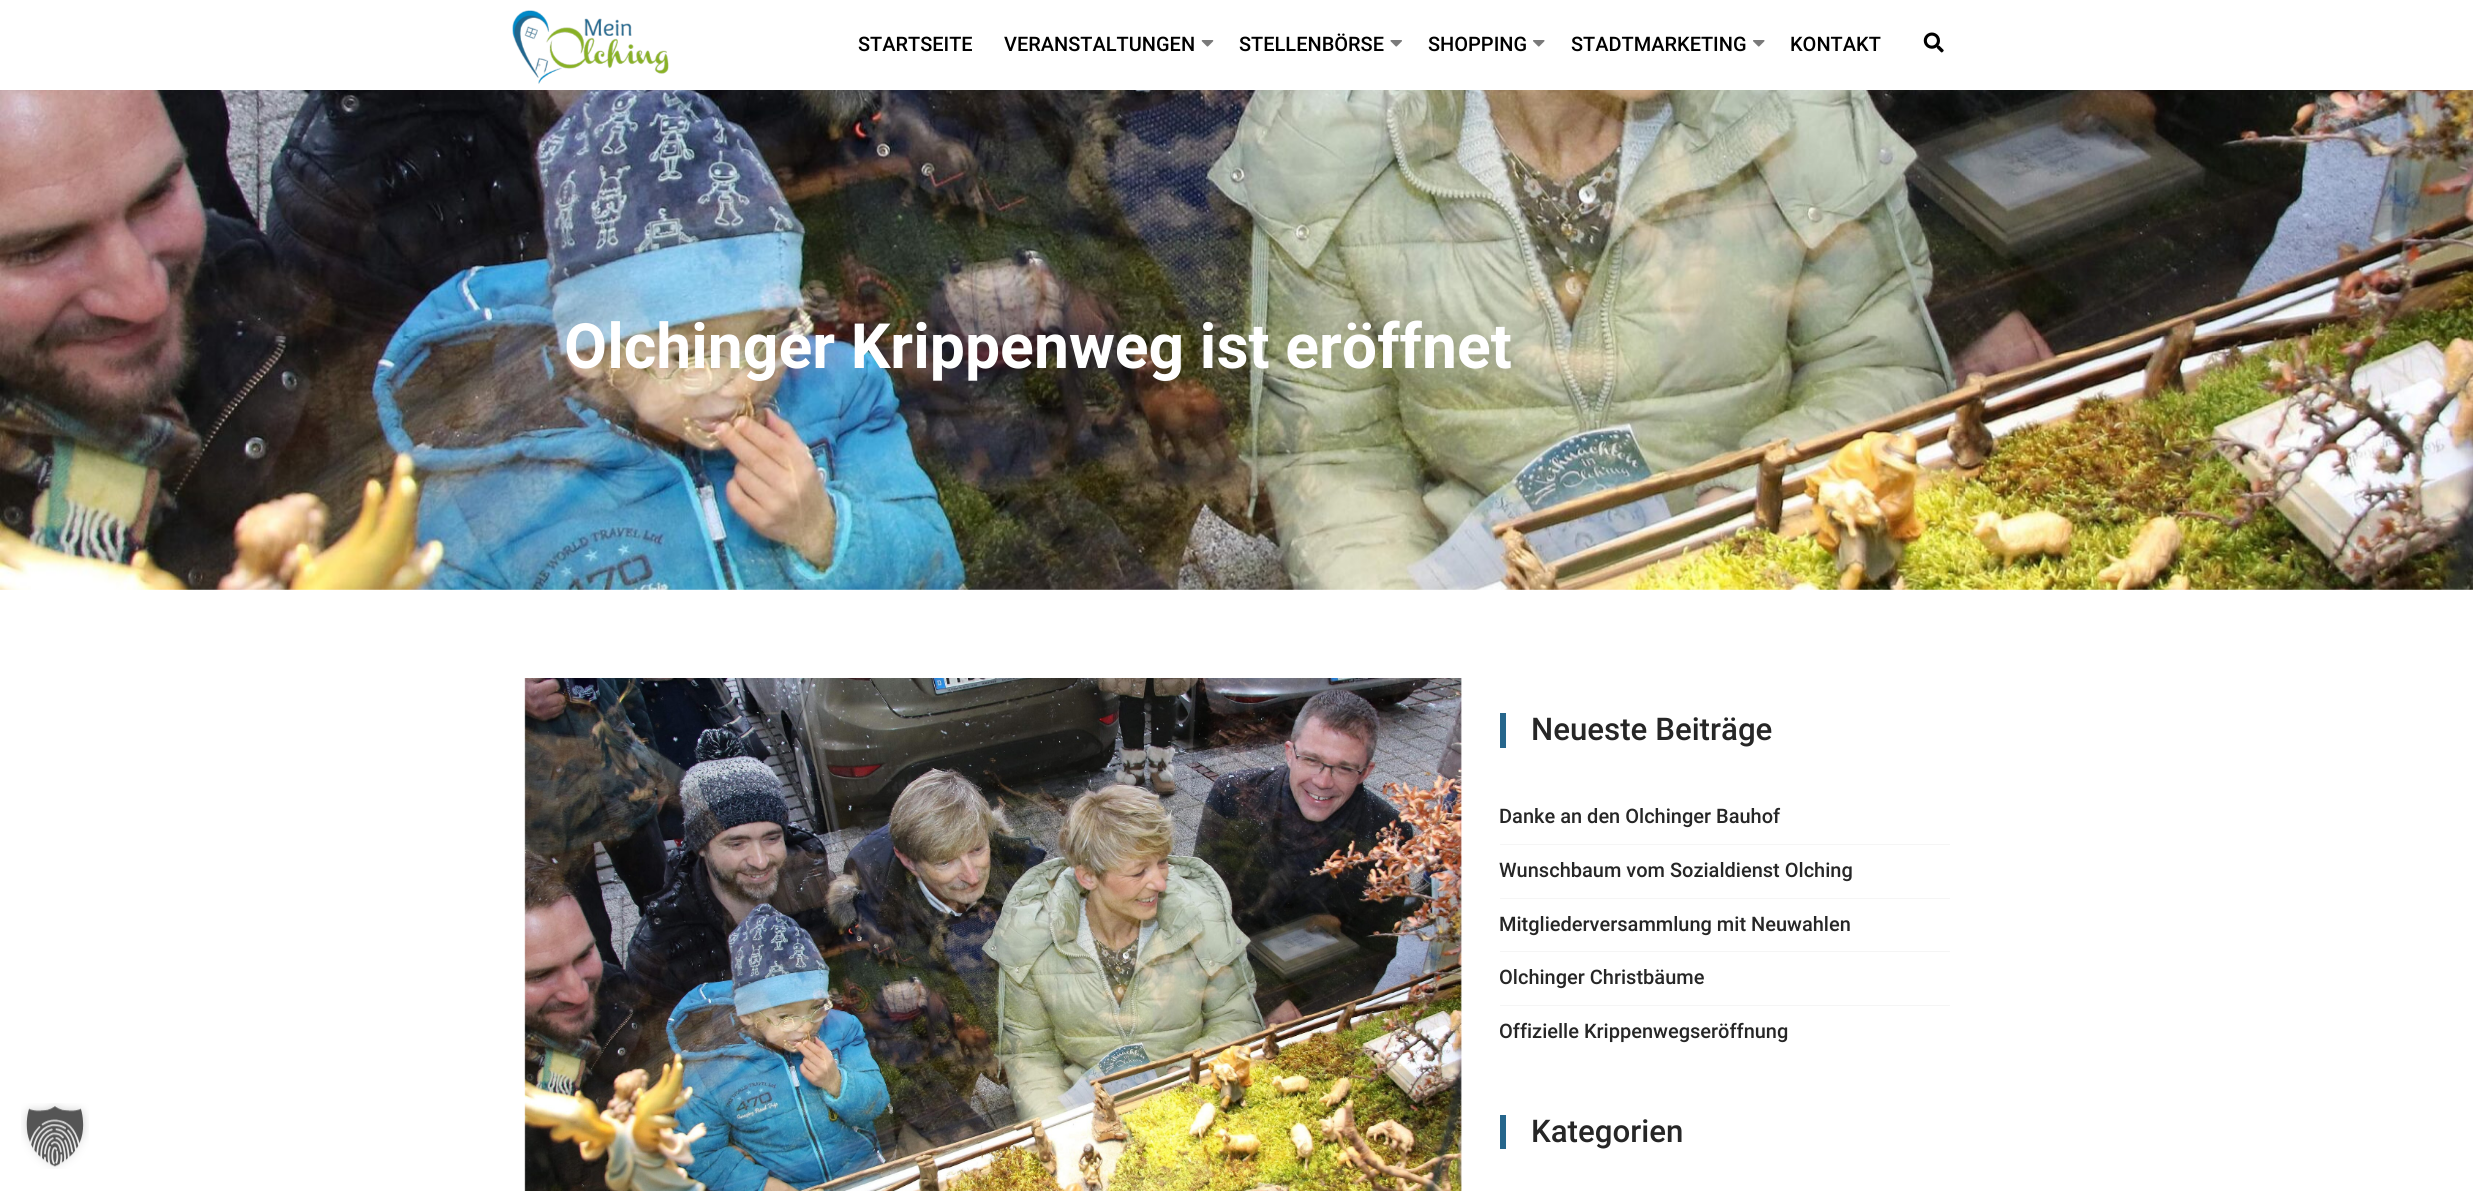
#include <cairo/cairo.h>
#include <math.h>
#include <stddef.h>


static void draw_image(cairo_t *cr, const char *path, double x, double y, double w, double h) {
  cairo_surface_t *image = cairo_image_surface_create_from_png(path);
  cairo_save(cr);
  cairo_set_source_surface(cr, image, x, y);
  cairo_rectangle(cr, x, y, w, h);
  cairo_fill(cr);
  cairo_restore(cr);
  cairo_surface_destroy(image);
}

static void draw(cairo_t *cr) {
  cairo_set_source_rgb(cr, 1, 1, 1);
  cairo_paint(cr);
  draw_image(cr, "images/1.png", 21, 1103, 68, 66);
  draw_image(cr, "images/2.png", 512, 10, 157, 74);
  draw_image(cr, "images/3.png", 1201, 40, 13, 7);
  draw_image(cr, "images/4.png", 1390, 40, 12, 7);
  draw_image(cr, "images/5.png", 1533, 40, 12, 7);
  draw_image(cr, "images/5.png", 1753, 40, 12, 7);
  draw_image(cr, "images/6.png", 1923, 32, 21, 21);
  draw_image(cr, "images/7.png", 0, 90, 2473, 500);
  draw_image(cr, "images/8.png", 524, 678, 938, 513);
  cairo_set_source_rgb(cr, 38 / 255.0, 102 / 255.0, 140 / 255.0);
  cairo_rectangle(cr, 1500, 713, 6, 35);
  cairo_fill(cr);
  cairo_set_source_rgb(cr, 245 / 255.0, 245 / 255.0, 245 / 255.0);
  cairo_rectangle(cr, 1500, 844, 450, 1);
  cairo_fill(cr);
  cairo_rectangle(cr, 1500, 898, 450, 1);
  cairo_fill(cr);
  cairo_rectangle(cr, 1500, 951, 450, 1);
  cairo_fill(cr);
  cairo_rectangle(cr, 1500, 1005, 450, 1);
  cairo_fill(cr);
  cairo_set_source_rgb(cr, 38 / 255.0, 102 / 255.0, 140 / 255.0);
  cairo_rectangle(cr, 1500, 1115, 6, 34);
  cairo_fill(cr);
  cairo_select_font_face(cr, "Roboto Medium", CAIRO_FONT_SLANT_NORMAL, CAIRO_FONT_WEIGHT_NORMAL);
  cairo_set_font_size(cr, 20);
  cairo_set_source_rgb(cr, 0, 0, 0);
  cairo_move_to(cr, 858, 51);
  cairo_show_text(cr, "STARTSEITE");
  cairo_move_to(cr, 1004, 51);
  cairo_show_text(cr, "VERANSTALTUNGEN");
  cairo_move_to(cr, 1239, 51);
  cairo_show_text(cr, "STELLENBÖRSE");
  cairo_move_to(cr, 1428, 51);
  cairo_show_text(cr, "SHOPPING");
  cairo_move_to(cr, 1571, 51);
  cairo_show_text(cr, "STADTMARKETING");
  cairo_move_to(cr, 1790, 51);
  cairo_show_text(cr, "KONTAKT");
  cairo_select_font_face(cr, "Roboto", CAIRO_FONT_SLANT_NORMAL, CAIRO_FONT_WEIGHT_BOLD);
  cairo_set_font_size(cr, 62.5);
  cairo_set_source_rgb(cr, 1, 1, 1);
  cairo_move_to(cr, 564, 368);
  cairo_show_text(cr, "Olchinger Krippenweg ist eröffnet");
  cairo_select_font_face(cr, "Roboto Medium", CAIRO_FONT_SLANT_NORMAL, CAIRO_FONT_WEIGHT_NORMAL);
  cairo_set_font_size(cr, 31.25);
  cairo_set_source_rgb(cr, 38 / 255.0, 38 / 255.0, 38 / 255.0);
  cairo_move_to(cr, 1531, 740);
  cairo_show_text(cr, "Neueste Beiträge");
  cairo_set_font_size(cr, 20);
  cairo_move_to(cr, 1499, 823);
  cairo_show_text(cr, "Danke an den Olchinger Bauhof");
  cairo_move_to(cr, 1499, 877);
  cairo_show_text(cr, "Wunschbaum vom Sozialdienst Olching");
  cairo_move_to(cr, 1499, 931);
  cairo_show_text(cr, "Mitgliederversammlung mit Neuwahlen");
  cairo_move_to(cr, 1499, 984);
  cairo_show_text(cr, "Olchinger Christbäume");
  cairo_move_to(cr, 1499, 1038);
  cairo_show_text(cr, "Offizielle Krippenwegseröffnung");
  cairo_set_font_size(cr, 31.25);
  cairo_move_to(cr, 1531, 1142);
  cairo_show_text(cr, "Kategorien");
}

int main(void) {
  cairo_surface_t *surface = cairo_image_surface_create(CAIRO_FORMAT_RGB24, 2473, 1191);
  cairo_t *cr = cairo_create(surface);
  cairo_font_options_t *options = cairo_font_options_create();
  cairo_font_options_set_hint_metrics(options, CAIRO_HINT_METRICS_OFF);
  cairo_font_options_set_hint_style(options, CAIRO_HINT_STYLE_NONE);
  cairo_set_font_options(cr, options);
  cairo_set_miter_limit(cr, 4);
  draw(cr);
  cairo_surface_write_to_png(surface, "out.png");
  cairo_font_options_destroy(options);
  cairo_destroy(cr);
  cairo_surface_destroy(surface);
  return 0;
}
